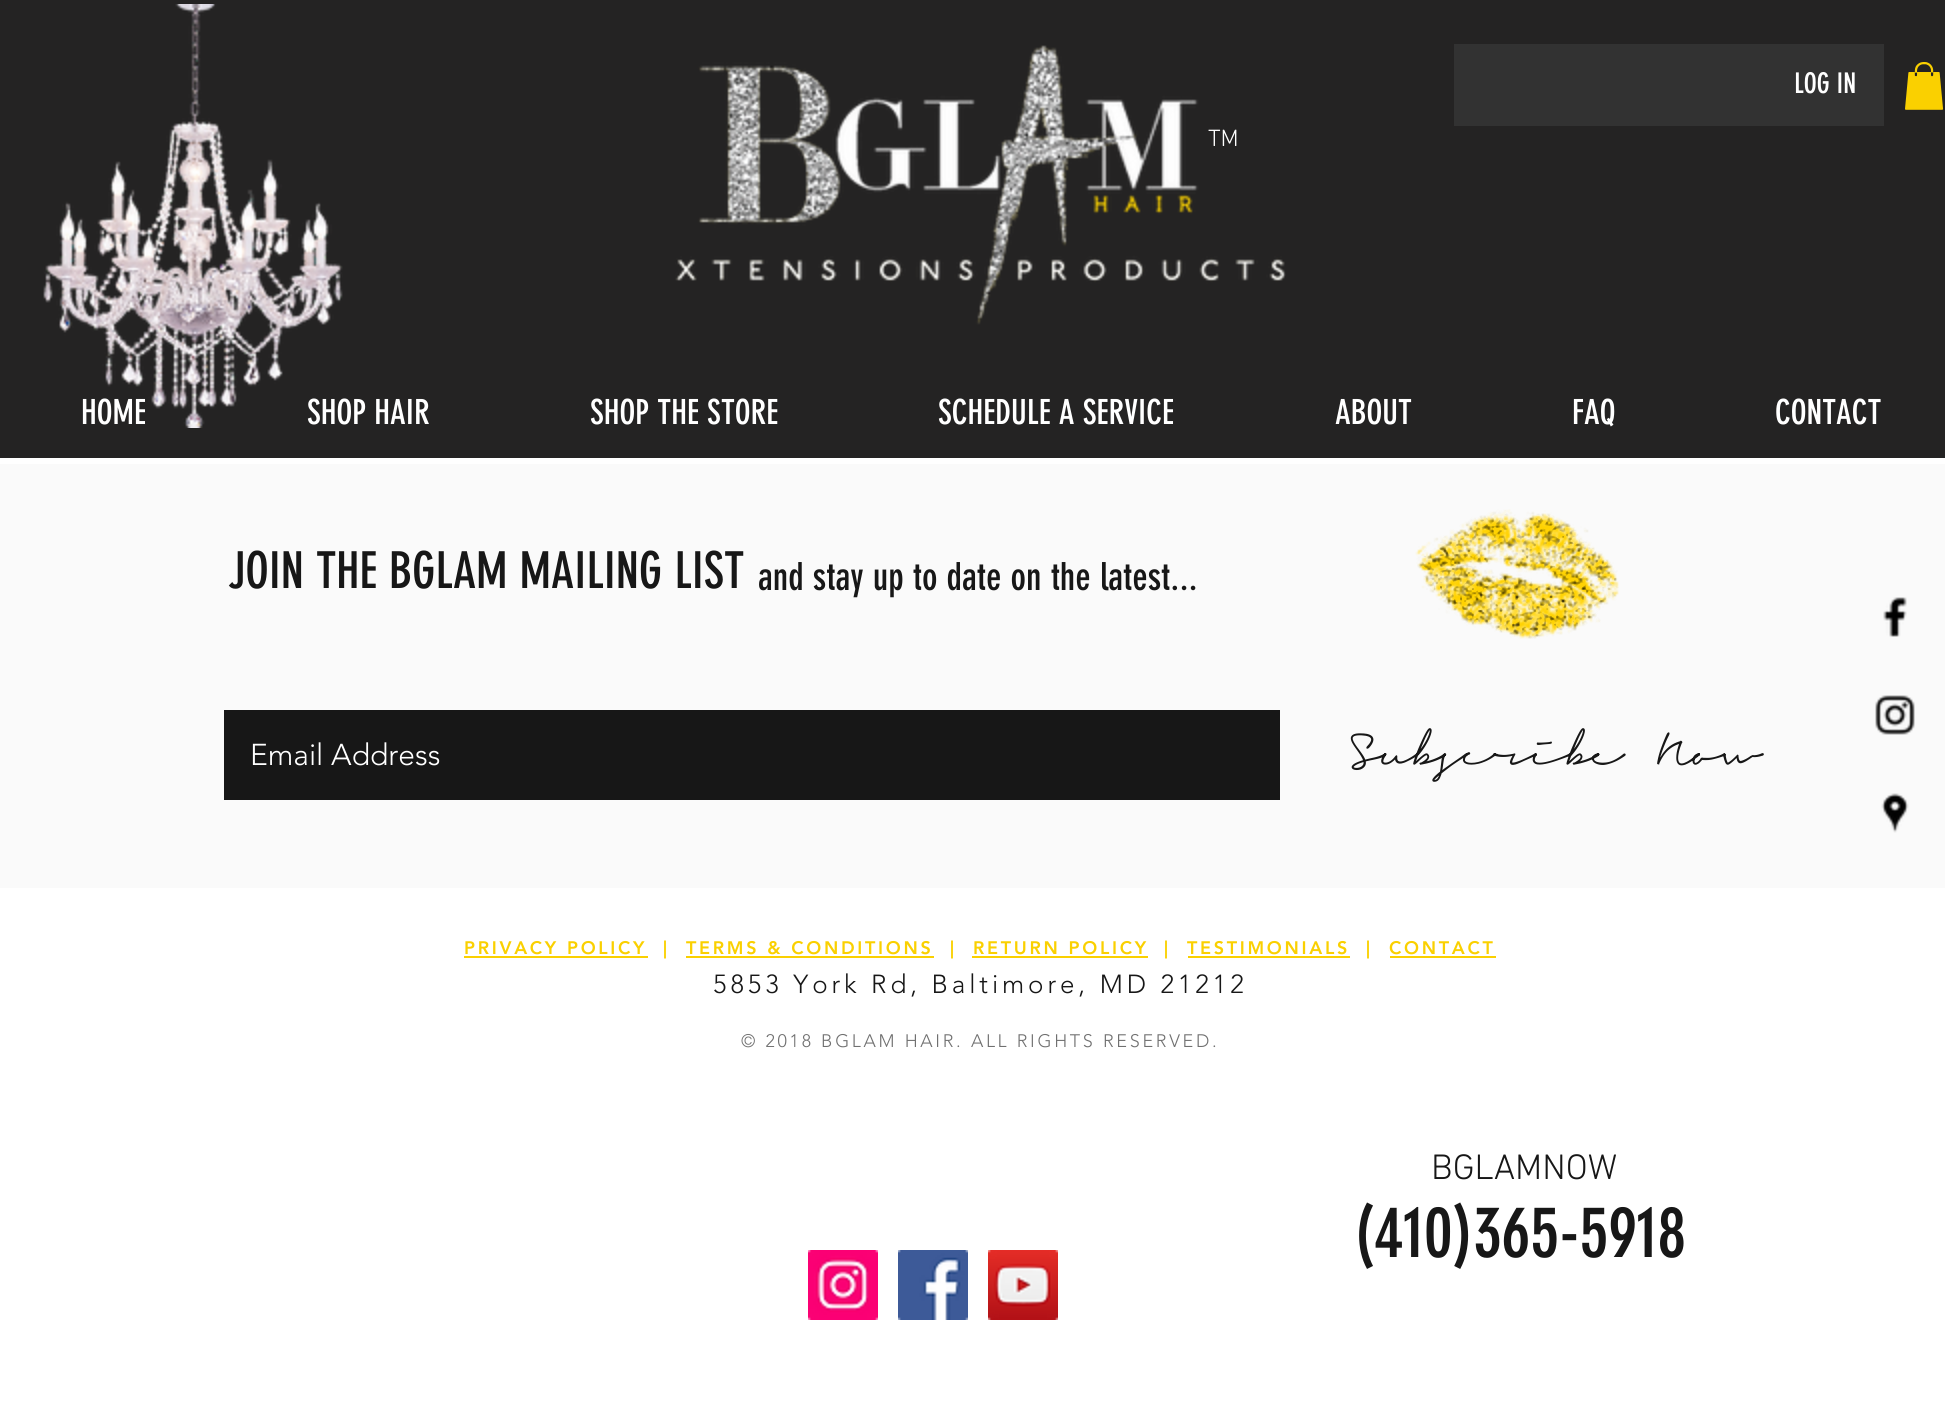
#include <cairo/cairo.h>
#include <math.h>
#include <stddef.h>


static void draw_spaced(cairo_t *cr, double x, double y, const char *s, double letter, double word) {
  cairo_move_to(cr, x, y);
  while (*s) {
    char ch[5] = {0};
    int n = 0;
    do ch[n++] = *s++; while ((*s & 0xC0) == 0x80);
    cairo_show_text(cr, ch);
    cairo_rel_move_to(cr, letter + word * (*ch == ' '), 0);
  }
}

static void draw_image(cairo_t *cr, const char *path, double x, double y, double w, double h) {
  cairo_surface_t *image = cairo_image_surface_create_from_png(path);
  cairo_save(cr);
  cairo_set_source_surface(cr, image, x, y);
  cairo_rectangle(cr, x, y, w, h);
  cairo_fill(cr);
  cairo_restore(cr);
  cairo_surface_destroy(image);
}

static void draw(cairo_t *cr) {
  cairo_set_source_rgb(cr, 1, 1, 1);
  cairo_paint(cr);
  cairo_set_source_rgb(cr, 36 / 255.0, 35 / 255.0, 35 / 255.0);
  cairo_rectangle(cr, 0, 0, 1945, 458);
  cairo_fill(cr);
  draw_image(cr, "images/2.png", 675, 45, 611, 280);
  cairo_set_source_rgb(cr, 50 / 255.0, 50 / 255.0, 50 / 255.0);
  cairo_rectangle(cr, 1454, 44, 430, 82);
  cairo_fill(cr);
  draw_image(cr, "images/3.png", 1905, 62, 39, 48);
  cairo_set_source_rgb(cr, 250 / 255.0, 250 / 255.0, 250 / 255.0);
  cairo_rectangle(cr, 0, 464, 1945, 424);
  cairo_fill(cr);
  draw_image(cr, "images/4.png", 1415, 509, 204, 130);
  cairo_set_source_rgb(cr, 23 / 255.0, 23 / 255.0, 23 / 255.0);
  cairo_rectangle(cr, 224, 710, 1056, 90);
  cairo_fill(cr);
  cairo_set_source_rgb(cr, 250 / 255.0, 208 / 255.0, 0);
  cairo_rectangle(cr, 464, 956, 184, 2);
  cairo_fill(cr);
  cairo_rectangle(cr, 686, 956, 248, 2);
  cairo_fill(cr);
  cairo_rectangle(cr, 972, 956, 176, 2);
  cairo_fill(cr);
  cairo_rectangle(cr, 1188, 956, 162, 2);
  cairo_fill(cr);
  cairo_rectangle(cr, 1390, 956, 106, 2);
  cairo_fill(cr);
  draw_image(cr, "images/5.png", 808, 1250, 70, 70);
  draw_image(cr, "images/6.png", 898, 1250, 70, 70);
  draw_image(cr, "images/7.png", 988, 1250, 70, 70);
  draw_image(cr, "images/8.png", 1883, 597, 24, 40);
  draw_image(cr, "images/9.png", 1875, 695, 40, 40);
  draw_image(cr, "images/10.png", 1881, 793, 28, 40);
  cairo_select_font_face(cr, "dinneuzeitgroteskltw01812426", CAIRO_FONT_SLANT_NORMAL, CAIRO_FONT_WEIGHT_NORMAL);
  cairo_set_font_size(cr, 28);
  cairo_set_source_rgb(cr, 1, 1, 1);
  cairo_move_to(cr, 1794, 93);
  cairo_show_text(cr, "LOG IN");
  cairo_select_font_face(cr, "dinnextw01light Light", CAIRO_FONT_SLANT_NORMAL, CAIRO_FONT_WEIGHT_NORMAL);
  cairo_set_font_size(cr, 24);
  cairo_move_to(cr, 1208, 146);
  cairo_show_text(cr, "TM");
  cairo_select_font_face(cr, "dinneuzeitgroteskltw01812426", CAIRO_FONT_SLANT_NORMAL, CAIRO_FONT_WEIGHT_NORMAL);
  cairo_set_font_size(cr, 34);
  cairo_move_to(cr, 81, 424);
  cairo_show_text(cr, "HOME");
  cairo_move_to(cr, 307, 424);
  cairo_show_text(cr, "SHOP HAIR");
  draw_image(cr, "images/1.png", 43, 4, 300, 424);
  cairo_move_to(cr, 590, 424);
  cairo_show_text(cr, "SHOP THE STORE");
  cairo_move_to(cr, 938, 424);
  cairo_show_text(cr, "SCHEDULE A SERVICE");
  cairo_move_to(cr, 1335, 424);
  cairo_show_text(cr, "ABOUT");
  cairo_move_to(cr, 1572, 424);
  cairo_show_text(cr, "FAQ");
  cairo_move_to(cr, 1775, 424);
  cairo_show_text(cr, "CONTACT");
  cairo_set_font_size(cr, 50);
  cairo_set_source_rgb(cr, 23 / 255.0, 23 / 255.0, 23 / 255.0);
  cairo_move_to(cr, 228, 588);
  cairo_show_text(cr, "JOIN THE BGLAM MAILING LIST");
  cairo_set_font_size(cr, 38);
  cairo_move_to(cr, 758, 590);
  cairo_show_text(cr, "and stay up to date on the latest...");
  cairo_select_font_face(cr, "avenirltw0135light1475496 Light", CAIRO_FONT_SLANT_NORMAL, CAIRO_FONT_WEIGHT_NORMAL);
  cairo_set_font_size(cr, 30);
  cairo_set_source_rgb(cr, 1, 1, 1);
  cairo_move_to(cr, 250, 765);
  cairo_show_text(cr, "Email Address");
  cairo_select_font_face(cr, "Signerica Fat", CAIRO_FONT_SLANT_NORMAL, CAIRO_FONT_WEIGHT_NORMAL);
  cairo_set_font_size(cr, 38);
  cairo_set_source_rgb(cr, 23 / 255.0, 23 / 255.0, 23 / 255.0);
  cairo_move_to(cr, 1352, 764);
  cairo_show_text(cr, "Subscribe Now");
  cairo_select_font_face(cr, "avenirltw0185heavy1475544 Black", CAIRO_FONT_SLANT_NORMAL, CAIRO_FONT_WEIGHT_NORMAL);
  cairo_set_font_size(cr, 18);
  cairo_set_source_rgb(cr, 250 / 255.0, 208 / 255.0, 0);
  draw_spaced(cr, 464, 954, "PRIVACY POLICY", 2.7, 0);
  draw_spaced(cr, 663, 954, "|", 2.7, 0);
  draw_spaced(cr, 686, 954, "TERMS & CONDITIONS", 2.7, 0);
  draw_spaced(cr, 950, 954, "|", 2.7, 0);
  draw_spaced(cr, 973, 954, "RETURN POLICY", 2.7, 0);
  draw_spaced(cr, 1164, 954, "|", 2.7, 0);
  draw_spaced(cr, 1187, 954, "TESTIMONIALS", 2.7, 0);
  draw_spaced(cr, 1366, 954, "|", 2.7, 0);
  draw_spaced(cr, 1389, 954, "CONTACT", 2.7, 0);
  cairo_select_font_face(cr, "avenirltw0135light1475496 Light", CAIRO_FONT_SLANT_NORMAL, CAIRO_FONT_WEIGHT_NORMAL);
  cairo_set_font_size(cr, 26);
  cairo_set_source_rgb(cr, 23 / 255.0, 23 / 255.0, 23 / 255.0);
  draw_spaced(cr, 713, 993, "5853 York Rd, Baltimore, MD 21212", 3.9, 0);
  cairo_set_font_size(cr, 18);
  cairo_set_source_rgb(cr, 112 / 255.0, 112 / 255.0, 112 / 255.0);
  draw_spaced(cr, 741, 1047, "© 2018 BGLAM HAIR. ALL RIGHTS RESERVED.", 2.7, 0);
  cairo_select_font_face(cr, "dinnextw01light Light", CAIRO_FONT_SLANT_NORMAL, CAIRO_FONT_WEIGHT_NORMAL);
  cairo_set_font_size(cr, 36);
  cairo_set_source_rgb(cr, 23 / 255.0, 23 / 255.0, 23 / 255.0);
  cairo_move_to(cr, 1431, 1179);
  cairo_show_text(cr, "BGLAMNOW");
  cairo_select_font_face(cr, "dinneuzeitgroteskltw01812426", CAIRO_FONT_SLANT_NORMAL, CAIRO_FONT_WEIGHT_NORMAL);
  cairo_set_font_size(cr, 70);
  cairo_move_to(cr, 1354, 1257);
  cairo_show_text(cr, "(410)365-5918");
}

int main(void) {
  cairo_surface_t *surface = cairo_image_surface_create(CAIRO_FORMAT_RGB24, 1945, 1427);
  cairo_t *cr = cairo_create(surface);
  cairo_font_options_t *options = cairo_font_options_create();
  cairo_font_options_set_hint_metrics(options, CAIRO_HINT_METRICS_OFF);
  cairo_font_options_set_hint_style(options, CAIRO_HINT_STYLE_NONE);
  cairo_set_font_options(cr, options);
  cairo_set_miter_limit(cr, 4);
  draw(cr);
  cairo_surface_write_to_png(surface, "out.png");
  cairo_font_options_destroy(options);
  cairo_destroy(cr);
  cairo_surface_destroy(surface);
  return 0;
}
